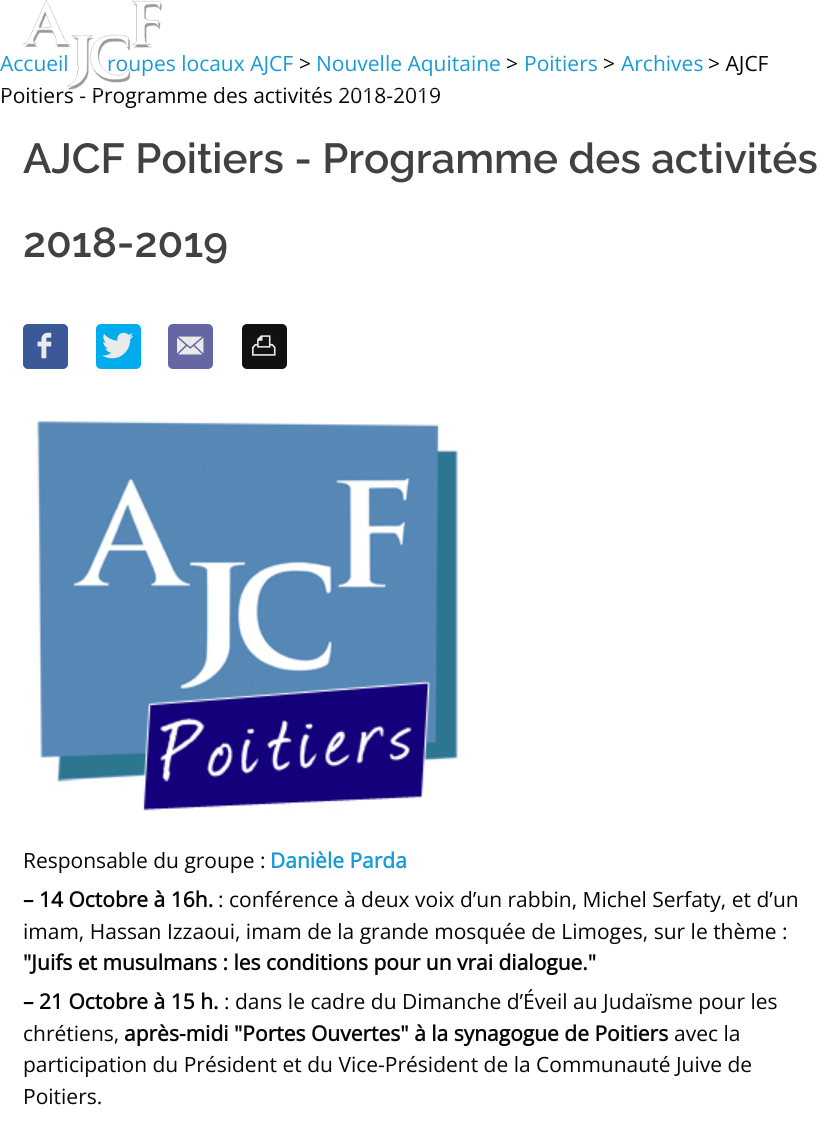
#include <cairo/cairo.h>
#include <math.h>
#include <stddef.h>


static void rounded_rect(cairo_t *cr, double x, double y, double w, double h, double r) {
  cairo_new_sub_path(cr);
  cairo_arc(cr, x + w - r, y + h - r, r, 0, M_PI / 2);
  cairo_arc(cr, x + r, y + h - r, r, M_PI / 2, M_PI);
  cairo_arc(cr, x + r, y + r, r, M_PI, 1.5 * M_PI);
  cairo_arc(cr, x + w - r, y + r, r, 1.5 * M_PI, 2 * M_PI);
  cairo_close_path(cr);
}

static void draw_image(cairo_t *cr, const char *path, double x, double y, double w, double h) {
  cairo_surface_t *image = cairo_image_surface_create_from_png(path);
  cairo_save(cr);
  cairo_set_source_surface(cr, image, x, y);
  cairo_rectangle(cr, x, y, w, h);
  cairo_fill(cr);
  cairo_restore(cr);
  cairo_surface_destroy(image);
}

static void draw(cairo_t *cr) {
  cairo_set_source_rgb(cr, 1, 1, 1);
  cairo_paint(cr);
  cairo_set_source_rgb(cr, 59 / 255.0, 89 / 255.0, 152 / 255.0);
  rounded_rect(cr, 23, 324, 45, 45, 5);
  cairo_fill(cr);
  draw_image(cr, "images/2.png", 37, 332, 15, 27);
  cairo_set_source_rgb(cr, 0, 172 / 255.0, 238 / 255.0);
  rounded_rect(cr, 96, 324, 45, 45, 5);
  cairo_fill(cr);
  draw_image(cr, "images/3.png", 102, 332, 32, 27);
  cairo_set_source_rgb(cr, 101 / 255.0, 103 / 255.0, 165 / 255.0);
  rounded_rect(cr, 168, 324, 45, 45, 5);
  cairo_fill(cr);
  draw_image(cr, "images/4.png", 177, 336, 27, 19);
  cairo_set_source_rgb(cr, 17 / 255.0, 17 / 255.0, 17 / 255.0);
  rounded_rect(cr, 242, 324, 45, 45, 5);
  cairo_fill(cr);
  draw_image(cr, "images/5.png", 252, 335, 24, 21);
  draw_image(cr, "images/6.png", 37, 421, 421, 390);
  cairo_select_font_face(cr, "Open Sans", CAIRO_FONT_SLANT_NORMAL, CAIRO_FONT_WEIGHT_NORMAL);
  cairo_set_font_size(cr, 21);
  cairo_set_source_rgb(cr, 23 / 255.0, 155 / 255.0, 215 / 255.0);
  cairo_move_to(cr, 0, 71);
  cairo_show_text(cr, "Accueil");
  cairo_move_to(cr, 107, 71);
  cairo_show_text(cr, "roupes locaux AJCF");
  cairo_set_source_rgb(cr, 6 / 255.0, 6 / 255.0, 6 / 255.0);
  cairo_move_to(cr, 299, 71);
  cairo_show_text(cr, ">");
  cairo_set_source_rgb(cr, 23 / 255.0, 155 / 255.0, 215 / 255.0);
  cairo_move_to(cr, 316, 71);
  cairo_show_text(cr, "Nouvelle Aquitaine");
  cairo_set_source_rgb(cr, 6 / 255.0, 6 / 255.0, 6 / 255.0);
  cairo_move_to(cr, 506, 71);
  cairo_show_text(cr, ">");
  cairo_set_source_rgb(cr, 23 / 255.0, 155 / 255.0, 215 / 255.0);
  cairo_move_to(cr, 524, 71);
  cairo_show_text(cr, "Poitiers");
  cairo_set_source_rgb(cr, 6 / 255.0, 6 / 255.0, 6 / 255.0);
  cairo_move_to(cr, 603, 71);
  cairo_show_text(cr, ">");
  cairo_set_source_rgb(cr, 23 / 255.0, 155 / 255.0, 215 / 255.0);
  cairo_move_to(cr, 621, 71);
  cairo_show_text(cr, "Archives");
  cairo_set_source_rgb(cr, 6 / 255.0, 6 / 255.0, 6 / 255.0);
  cairo_move_to(cr, 708, 71);
  cairo_show_text(cr, "> AJCF");
  cairo_move_to(cr, 0, 103);
  cairo_show_text(cr, "Poitiers - Programme des activités 2018-2019");
  cairo_set_source_rgba(cr, 1, 1, 1, 0.3);
  cairo_rectangle(cr, 0, 89, 440, 2);
  cairo_fill(cr);
  draw_image(cr, "images/1.png", 23, 0, 139, 90);
  cairo_select_font_face(cr, "Raleway SemiBold", CAIRO_FONT_SLANT_NORMAL, CAIRO_FONT_WEIGHT_NORMAL);
  cairo_set_font_size(cr, 42);
  cairo_set_source_rgb(cr, 65 / 255.0, 65 / 255.0, 65 / 255.0);
  cairo_move_to(cr, 23, 173);
  cairo_show_text(cr, "AJCF Poitiers - Programme des activités");
  cairo_move_to(cr, 23, 257);
  cairo_show_text(cr, "2018-2019");
  cairo_select_font_face(cr, "Open Sans", CAIRO_FONT_SLANT_NORMAL, CAIRO_FONT_WEIGHT_NORMAL);
  cairo_set_font_size(cr, 21);
  cairo_set_source_rgb(cr, 6 / 255.0, 6 / 255.0, 6 / 255.0);
  cairo_move_to(cr, 23, 868);
  cairo_show_text(cr, "Responsable du groupe :");
  cairo_select_font_face(cr, "Open Sans", CAIRO_FONT_SLANT_NORMAL, CAIRO_FONT_WEIGHT_BOLD);
  cairo_set_source_rgb(cr, 23 / 255.0, 155 / 255.0, 215 / 255.0);
  cairo_move_to(cr, 270, 868);
  cairo_show_text(cr, "Danièle Parda");
  cairo_set_source_rgb(cr, 6 / 255.0, 6 / 255.0, 6 / 255.0);
  cairo_move_to(cr, 23, 907);
  cairo_show_text(cr, "– 14 Octobre à 16h.");
  cairo_select_font_face(cr, "Open Sans", CAIRO_FONT_SLANT_NORMAL, CAIRO_FONT_WEIGHT_NORMAL);
  cairo_move_to(cr, 218, 907);
  cairo_show_text(cr, ": conférence à deux voix d’un rabbin, Michel Serfaty, et d’un");
  cairo_move_to(cr, 23, 939);
  cairo_show_text(cr, "imam, Hassan Izzaoui, imam de la grande mosquée de Limoges, sur le thème :");
  cairo_select_font_face(cr, "Open Sans", CAIRO_FONT_SLANT_NORMAL, CAIRO_FONT_WEIGHT_BOLD);
  cairo_move_to(cr, 23, 970);
  cairo_show_text(cr, "\"Juifs et musulmans : les conditions pour un vrai dialogue.\"");
  cairo_move_to(cr, 23, 1009);
  cairo_show_text(cr, "– 21 Octobre à 15 h.");
  cairo_select_font_face(cr, "Open Sans", CAIRO_FONT_SLANT_NORMAL, CAIRO_FONT_WEIGHT_NORMAL);
  cairo_move_to(cr, 224, 1009);
  cairo_show_text(cr, ": dans le cadre du Dimanche d’Éveil au Judaïsme pour les");
  cairo_move_to(cr, 23, 1041);
  cairo_show_text(cr, "chrétiens,");
  cairo_select_font_face(cr, "Open Sans", CAIRO_FONT_SLANT_NORMAL, CAIRO_FONT_WEIGHT_BOLD);
  cairo_move_to(cr, 124, 1041);
  cairo_show_text(cr, "après-midi \"Portes Ouvertes\" à la synagogue de Poitiers");
  cairo_select_font_face(cr, "Open Sans", CAIRO_FONT_SLANT_NORMAL, CAIRO_FONT_WEIGHT_NORMAL);
  cairo_move_to(cr, 674, 1041);
  cairo_show_text(cr, "avec la");
  cairo_move_to(cr, 23, 1072);
  cairo_show_text(cr, "participation du Président et du Vice-Président de la Communauté Juive de");
  cairo_move_to(cr, 23, 1104);
  cairo_show_text(cr, "Poitiers.");
}

int main(void) {
  cairo_surface_t *surface = cairo_image_surface_create(CAIRO_FORMAT_RGB24, 839, 1137);
  cairo_t *cr = cairo_create(surface);
  cairo_font_options_t *options = cairo_font_options_create();
  cairo_font_options_set_hint_metrics(options, CAIRO_HINT_METRICS_OFF);
  cairo_font_options_set_hint_style(options, CAIRO_HINT_STYLE_NONE);
  cairo_set_font_options(cr, options);
  cairo_set_miter_limit(cr, 4);
  draw(cr);
  cairo_surface_write_to_png(surface, "out.png");
  cairo_font_options_destroy(options);
  cairo_destroy(cr);
  cairo_surface_destroy(surface);
  return 0;
}
